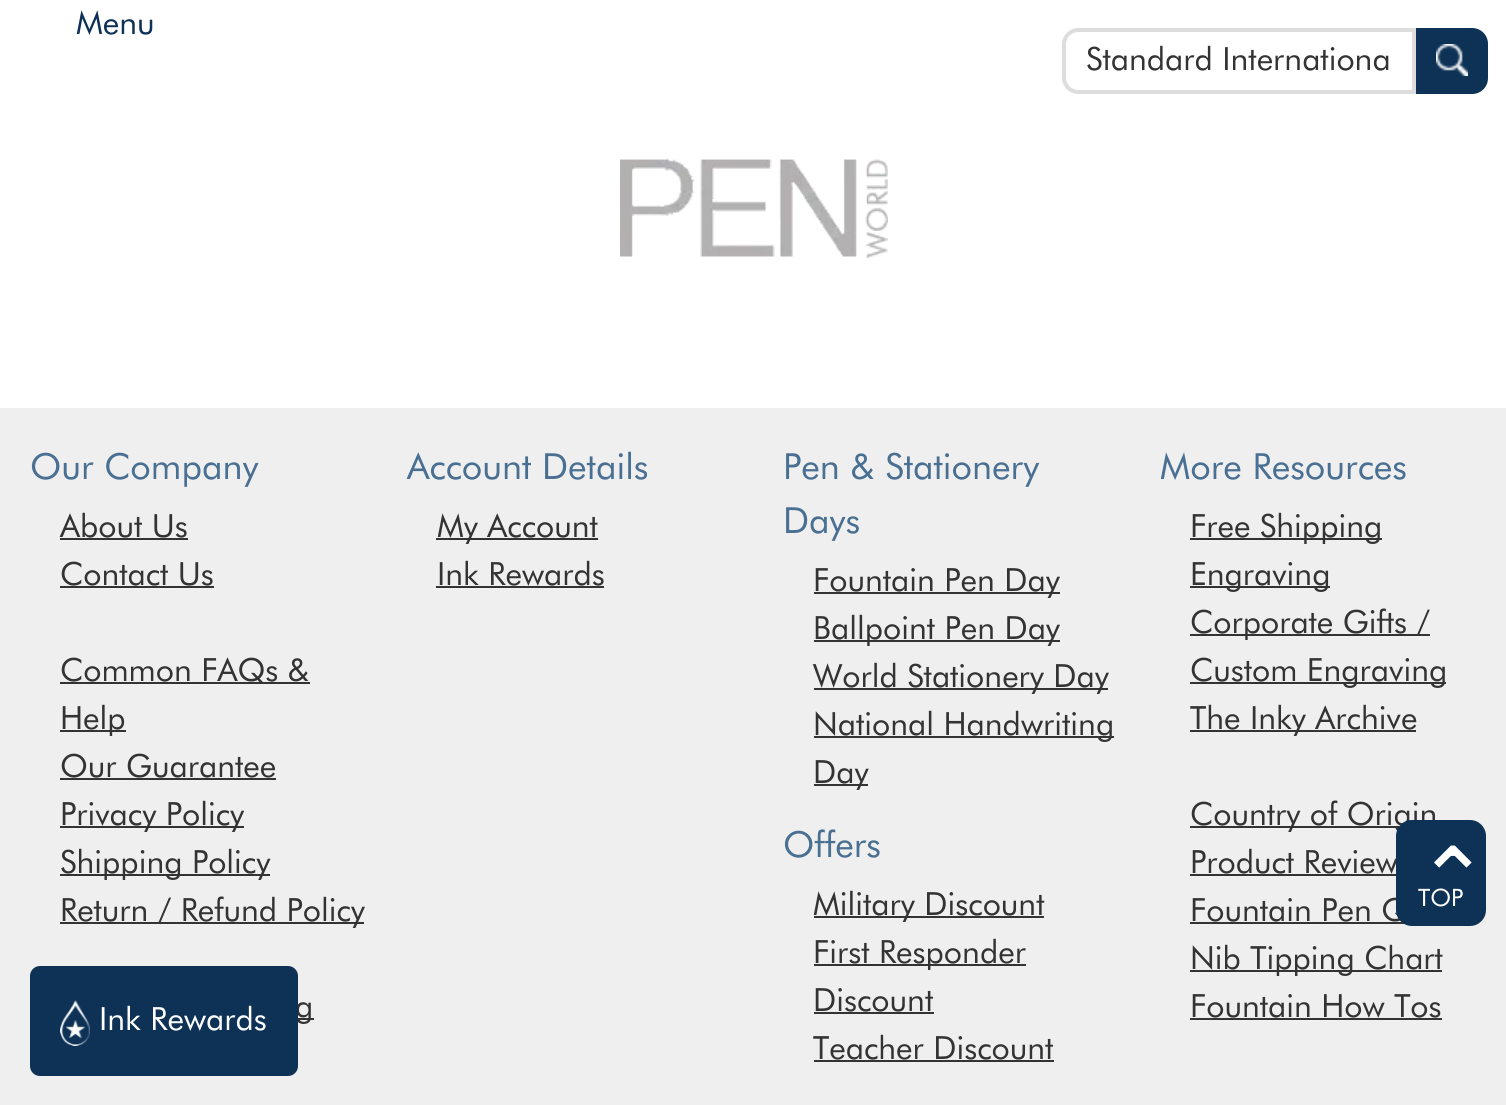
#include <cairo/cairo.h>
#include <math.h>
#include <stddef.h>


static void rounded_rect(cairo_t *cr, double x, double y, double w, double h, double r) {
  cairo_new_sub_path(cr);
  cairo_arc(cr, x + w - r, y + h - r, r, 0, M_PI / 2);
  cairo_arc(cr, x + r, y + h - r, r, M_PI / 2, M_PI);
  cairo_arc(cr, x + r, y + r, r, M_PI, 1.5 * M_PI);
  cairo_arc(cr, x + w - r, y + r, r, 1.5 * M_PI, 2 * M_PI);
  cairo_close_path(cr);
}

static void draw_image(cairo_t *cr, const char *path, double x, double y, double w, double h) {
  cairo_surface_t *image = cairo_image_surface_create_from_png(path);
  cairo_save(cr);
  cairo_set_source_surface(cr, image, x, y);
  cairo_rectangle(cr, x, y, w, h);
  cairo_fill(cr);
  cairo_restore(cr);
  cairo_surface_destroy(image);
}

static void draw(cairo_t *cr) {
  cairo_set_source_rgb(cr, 1, 1, 1);
  cairo_paint(cr);
  cairo_new_path(cr);
  cairo_move_to(cr, 1078, 30);
  cairo_line_to(cr, 1414, 30);
  cairo_line_to(cr, 1414, 92);
  cairo_line_to(cr, 1078, 92);
  cairo_curve_to(cr, 1070.5, 92, 1064, 85.5, 1064, 78);
  cairo_line_to(cr, 1064, 44);
  cairo_curve_to(cr, 1064, 36.5, 1070.5, 30, 1078, 30);
  cairo_close_path(cr);
  cairo_set_source_rgb(cr, 221 / 255.0, 221 / 255.0, 221 / 255.0);
  cairo_set_line_width(cr, 4);
  cairo_stroke(cr);
  cairo_set_source_rgb(cr, 13 / 255.0, 50 / 255.0, 86 / 255.0);
  cairo_new_path(cr);
  cairo_move_to(cr, 1416, 28);
  cairo_line_to(cr, 1472, 28);
  cairo_curve_to(cr, 1481, 28, 1488, 35, 1488, 44);
  cairo_line_to(cr, 1488, 78);
  cairo_curve_to(cr, 1488, 87, 1481, 94, 1472, 94);
  cairo_line_to(cr, 1416, 94);
  cairo_close_path(cr);
  cairo_fill(cr);
  draw_image(cr, "images/1.png", 1436, 44, 32, 32);
  draw_image(cr, "images/2.png", 620, 158, 268, 100);
  cairo_set_source_rgb(cr, 239 / 255.0, 239 / 255.0, 239 / 255.0);
  cairo_rectangle(cr, 0, 408, 1506, 697);
  cairo_fill(cr);
  cairo_set_source_rgb(cr, 51 / 255.0, 51 / 255.0, 51 / 255.0);
  cairo_rectangle(cr, 60, 538, 128, 2);
  cairo_fill(cr);
  cairo_rectangle(cr, 60, 586, 154, 2);
  cairo_fill(cr);
  cairo_rectangle(cr, 60, 682, 250, 2);
  cairo_fill(cr);
  cairo_rectangle(cr, 60, 730, 66, 2);
  cairo_fill(cr);
  cairo_rectangle(cr, 60, 778, 216, 2);
  cairo_fill(cr);
  cairo_rectangle(cr, 60, 826, 184, 2);
  cairo_fill(cr);
  cairo_rectangle(cr, 60, 874, 210, 2);
  cairo_fill(cr);
  cairo_rectangle(cr, 60, 922, 304, 2);
  cairo_fill(cr);
  cairo_rectangle(cr, 298, 1018, 16, 2);
  cairo_fill(cr);
  cairo_rectangle(cr, 436, 538, 162, 2);
  cairo_fill(cr);
  cairo_rectangle(cr, 436, 586, 168, 2);
  cairo_fill(cr);
  cairo_rectangle(cr, 814, 592, 246, 2);
  cairo_fill(cr);
  cairo_rectangle(cr, 814, 640, 246, 2);
  cairo_fill(cr);
  cairo_rectangle(cr, 814, 688, 294, 2);
  cairo_fill(cr);
  cairo_rectangle(cr, 814, 736, 300, 2);
  cairo_fill(cr);
  cairo_rectangle(cr, 814, 784, 54, 2);
  cairo_fill(cr);
  cairo_rectangle(cr, 814, 916, 230, 2);
  cairo_fill(cr);
  cairo_rectangle(cr, 814, 964, 212, 2);
  cairo_fill(cr);
  cairo_rectangle(cr, 814, 1012, 120, 2);
  cairo_fill(cr);
  cairo_rectangle(cr, 814, 1060, 240, 2);
  cairo_fill(cr);
  cairo_rectangle(cr, 1190, 538, 192, 2);
  cairo_fill(cr);
  cairo_rectangle(cr, 1190, 586, 140, 2);
  cairo_fill(cr);
  cairo_rectangle(cr, 1190, 634, 240, 2);
  cairo_fill(cr);
  cairo_rectangle(cr, 1190, 682, 256, 2);
  cairo_fill(cr);
  cairo_rectangle(cr, 1190, 730, 226, 2);
  cairo_fill(cr);
  cairo_rectangle(cr, 1190, 826, 210, 2);
  cairo_fill(cr);
  cairo_rectangle(cr, 1190, 874, 206, 2);
  cairo_fill(cr);
  cairo_rectangle(cr, 1190, 922, 215, 2);
  cairo_fill(cr);
  cairo_rectangle(cr, 1190, 970, 252, 2);
  cairo_fill(cr);
  cairo_rectangle(cr, 1190, 1018, 252, 2);
  cairo_fill(cr);
  cairo_select_font_face(cr, "Futura", CAIRO_FONT_SLANT_NORMAL, CAIRO_FONT_WEIGHT_NORMAL);
  cairo_set_font_size(cr, 32);
  cairo_set_source_rgb(cr, 13 / 255.0, 50 / 255.0, 86 / 255.0);
  cairo_move_to(cr, 76, 34);
  cairo_show_text(cr, "Menu");
  cairo_set_source_rgb(cr, 51 / 255.0, 51 / 255.0, 51 / 255.0);
  cairo_move_to(cr, 1086, 70);
  cairo_show_text(cr, "Standard Internationa");
  cairo_set_font_size(cr, 36);
  cairo_set_source_rgb(cr, 73 / 255.0, 111 / 255.0, 146 / 255.0);
  cairo_move_to(cr, 30, 479);
  cairo_show_text(cr, "Our Company");
  cairo_set_font_size(cr, 32);
  cairo_set_source_rgb(cr, 51 / 255.0, 51 / 255.0, 51 / 255.0);
  cairo_move_to(cr, 60, 537);
  cairo_show_text(cr, "About Us");
  cairo_move_to(cr, 60, 585);
  cairo_show_text(cr, "Contact Us");
  cairo_move_to(cr, 60, 681);
  cairo_show_text(cr, "Common FAQs &");
  cairo_move_to(cr, 60, 729);
  cairo_show_text(cr, "Help");
  cairo_move_to(cr, 60, 777);
  cairo_show_text(cr, "Our Guarantee");
  cairo_move_to(cr, 60, 825);
  cairo_show_text(cr, "Privacy Policy");
  cairo_move_to(cr, 60, 873);
  cairo_show_text(cr, "Shipping Policy");
  cairo_move_to(cr, 60, 921);
  cairo_show_text(cr, "Return / Refund Policy");
  cairo_move_to(cr, 295, 1017);
  cairo_show_text(cr, "g");
  cairo_set_font_size(cr, 36);
  cairo_set_source_rgb(cr, 73 / 255.0, 111 / 255.0, 146 / 255.0);
  cairo_move_to(cr, 407, 479);
  cairo_show_text(cr, "Account Details");
  cairo_set_font_size(cr, 32);
  cairo_set_source_rgb(cr, 51 / 255.0, 51 / 255.0, 51 / 255.0);
  cairo_move_to(cr, 437, 537);
  cairo_show_text(cr, "My Account");
  cairo_move_to(cr, 437, 585);
  cairo_show_text(cr, "Ink Rewards");
  cairo_set_font_size(cr, 36);
  cairo_set_source_rgb(cr, 73 / 255.0, 111 / 255.0, 146 / 255.0);
  cairo_move_to(cr, 783, 479);
  cairo_show_text(cr, "Pen & Stationery");
  cairo_move_to(cr, 783, 533);
  cairo_show_text(cr, "Days");
  cairo_set_font_size(cr, 32);
  cairo_set_source_rgb(cr, 51 / 255.0, 51 / 255.0, 51 / 255.0);
  cairo_move_to(cr, 813, 591);
  cairo_show_text(cr, "Fountain Pen Day");
  cairo_move_to(cr, 813, 639);
  cairo_show_text(cr, "Ballpoint Pen Day");
  cairo_move_to(cr, 813, 687);
  cairo_show_text(cr, "World Stationery Day");
  cairo_move_to(cr, 813, 735);
  cairo_show_text(cr, "National Handwriting");
  cairo_move_to(cr, 813, 783);
  cairo_show_text(cr, "Day");
  cairo_set_font_size(cr, 36);
  cairo_set_source_rgb(cr, 73 / 255.0, 111 / 255.0, 146 / 255.0);
  cairo_move_to(cr, 783, 857);
  cairo_show_text(cr, "Offers");
  cairo_set_font_size(cr, 32);
  cairo_set_source_rgb(cr, 51 / 255.0, 51 / 255.0, 51 / 255.0);
  cairo_move_to(cr, 813, 915);
  cairo_show_text(cr, "Military Discount");
  cairo_move_to(cr, 813, 963);
  cairo_show_text(cr, "First Responder");
  cairo_move_to(cr, 813, 1011);
  cairo_show_text(cr, "Discount");
  cairo_move_to(cr, 813, 1059);
  cairo_show_text(cr, "Teacher Discount");
  cairo_set_font_size(cr, 36);
  cairo_set_source_rgb(cr, 73 / 255.0, 111 / 255.0, 146 / 255.0);
  cairo_move_to(cr, 1160, 479);
  cairo_show_text(cr, "More Resources");
  cairo_set_font_size(cr, 32);
  cairo_set_source_rgb(cr, 51 / 255.0, 51 / 255.0, 51 / 255.0);
  cairo_move_to(cr, 1190, 537);
  cairo_show_text(cr, "Free Shipping");
  cairo_move_to(cr, 1190, 585);
  cairo_show_text(cr, "Engraving");
  cairo_move_to(cr, 1190, 633);
  cairo_show_text(cr, "Corporate Gifts /");
  cairo_move_to(cr, 1190, 681);
  cairo_show_text(cr, "Custom Engraving");
  cairo_move_to(cr, 1190, 729);
  cairo_show_text(cr, "The Inky Archive");
  cairo_move_to(cr, 1190, 825);
  cairo_show_text(cr, "Country of Origin");
  cairo_move_to(cr, 1190, 873);
  cairo_show_text(cr, "Product Review");
  cairo_move_to(cr, 1190, 921);
  cairo_show_text(cr, "Fountain Pen Q");
  cairo_move_to(cr, 1190, 969);
  cairo_show_text(cr, "Nib Tipping Chart");
  cairo_move_to(cr, 1190, 1017);
  cairo_show_text(cr, "Fountain How Tos");
  cairo_set_source_rgb(cr, 13 / 255.0, 50 / 255.0, 86 / 255.0);
  rounded_rect(cr, 1396, 820, 90, 106, 16);
  cairo_fill(cr);
  cairo_select_font_face(cr, "DejaVu Sans", CAIRO_FONT_SLANT_NORMAL, CAIRO_FONT_WEIGHT_NORMAL);
  cairo_set_font_size(cr, 88);
  cairo_set_source_rgb(cr, 1, 1, 1);
  cairo_move_to(cr, 1416, 910);
  cairo_show_text(cr, "⌃");
  cairo_select_font_face(cr, "Futura", CAIRO_FONT_SLANT_NORMAL, CAIRO_FONT_WEIGHT_NORMAL);
  cairo_set_font_size(cr, 24);
  cairo_move_to(cr, 1418, 906);
  cairo_show_text(cr, "TOP");
  cairo_set_source_rgb(cr, 13 / 255.0, 50 / 255.0, 86 / 255.0);
  rounded_rect(cr, 30, 966, 268, 110, 10);
  cairo_fill(cr);
  draw_image(cr, "images/3.png", 60, 1000, 30, 46);
  cairo_set_font_size(cr, 32);
  cairo_set_source_rgb(cr, 1, 1, 1);
  cairo_move_to(cr, 99, 1030);
  cairo_show_text(cr, "Ink Rewards");
}

int main(void) {
  cairo_surface_t *surface = cairo_image_surface_create(CAIRO_FORMAT_RGB24, 1506, 1105);
  cairo_t *cr = cairo_create(surface);
  cairo_font_options_t *options = cairo_font_options_create();
  cairo_font_options_set_hint_metrics(options, CAIRO_HINT_METRICS_OFF);
  cairo_font_options_set_hint_style(options, CAIRO_HINT_STYLE_NONE);
  cairo_set_font_options(cr, options);
  cairo_set_miter_limit(cr, 4);
  draw(cr);
  cairo_surface_write_to_png(surface, "out.png");
  cairo_font_options_destroy(options);
  cairo_destroy(cr);
  cairo_surface_destroy(surface);
  return 0;
}
